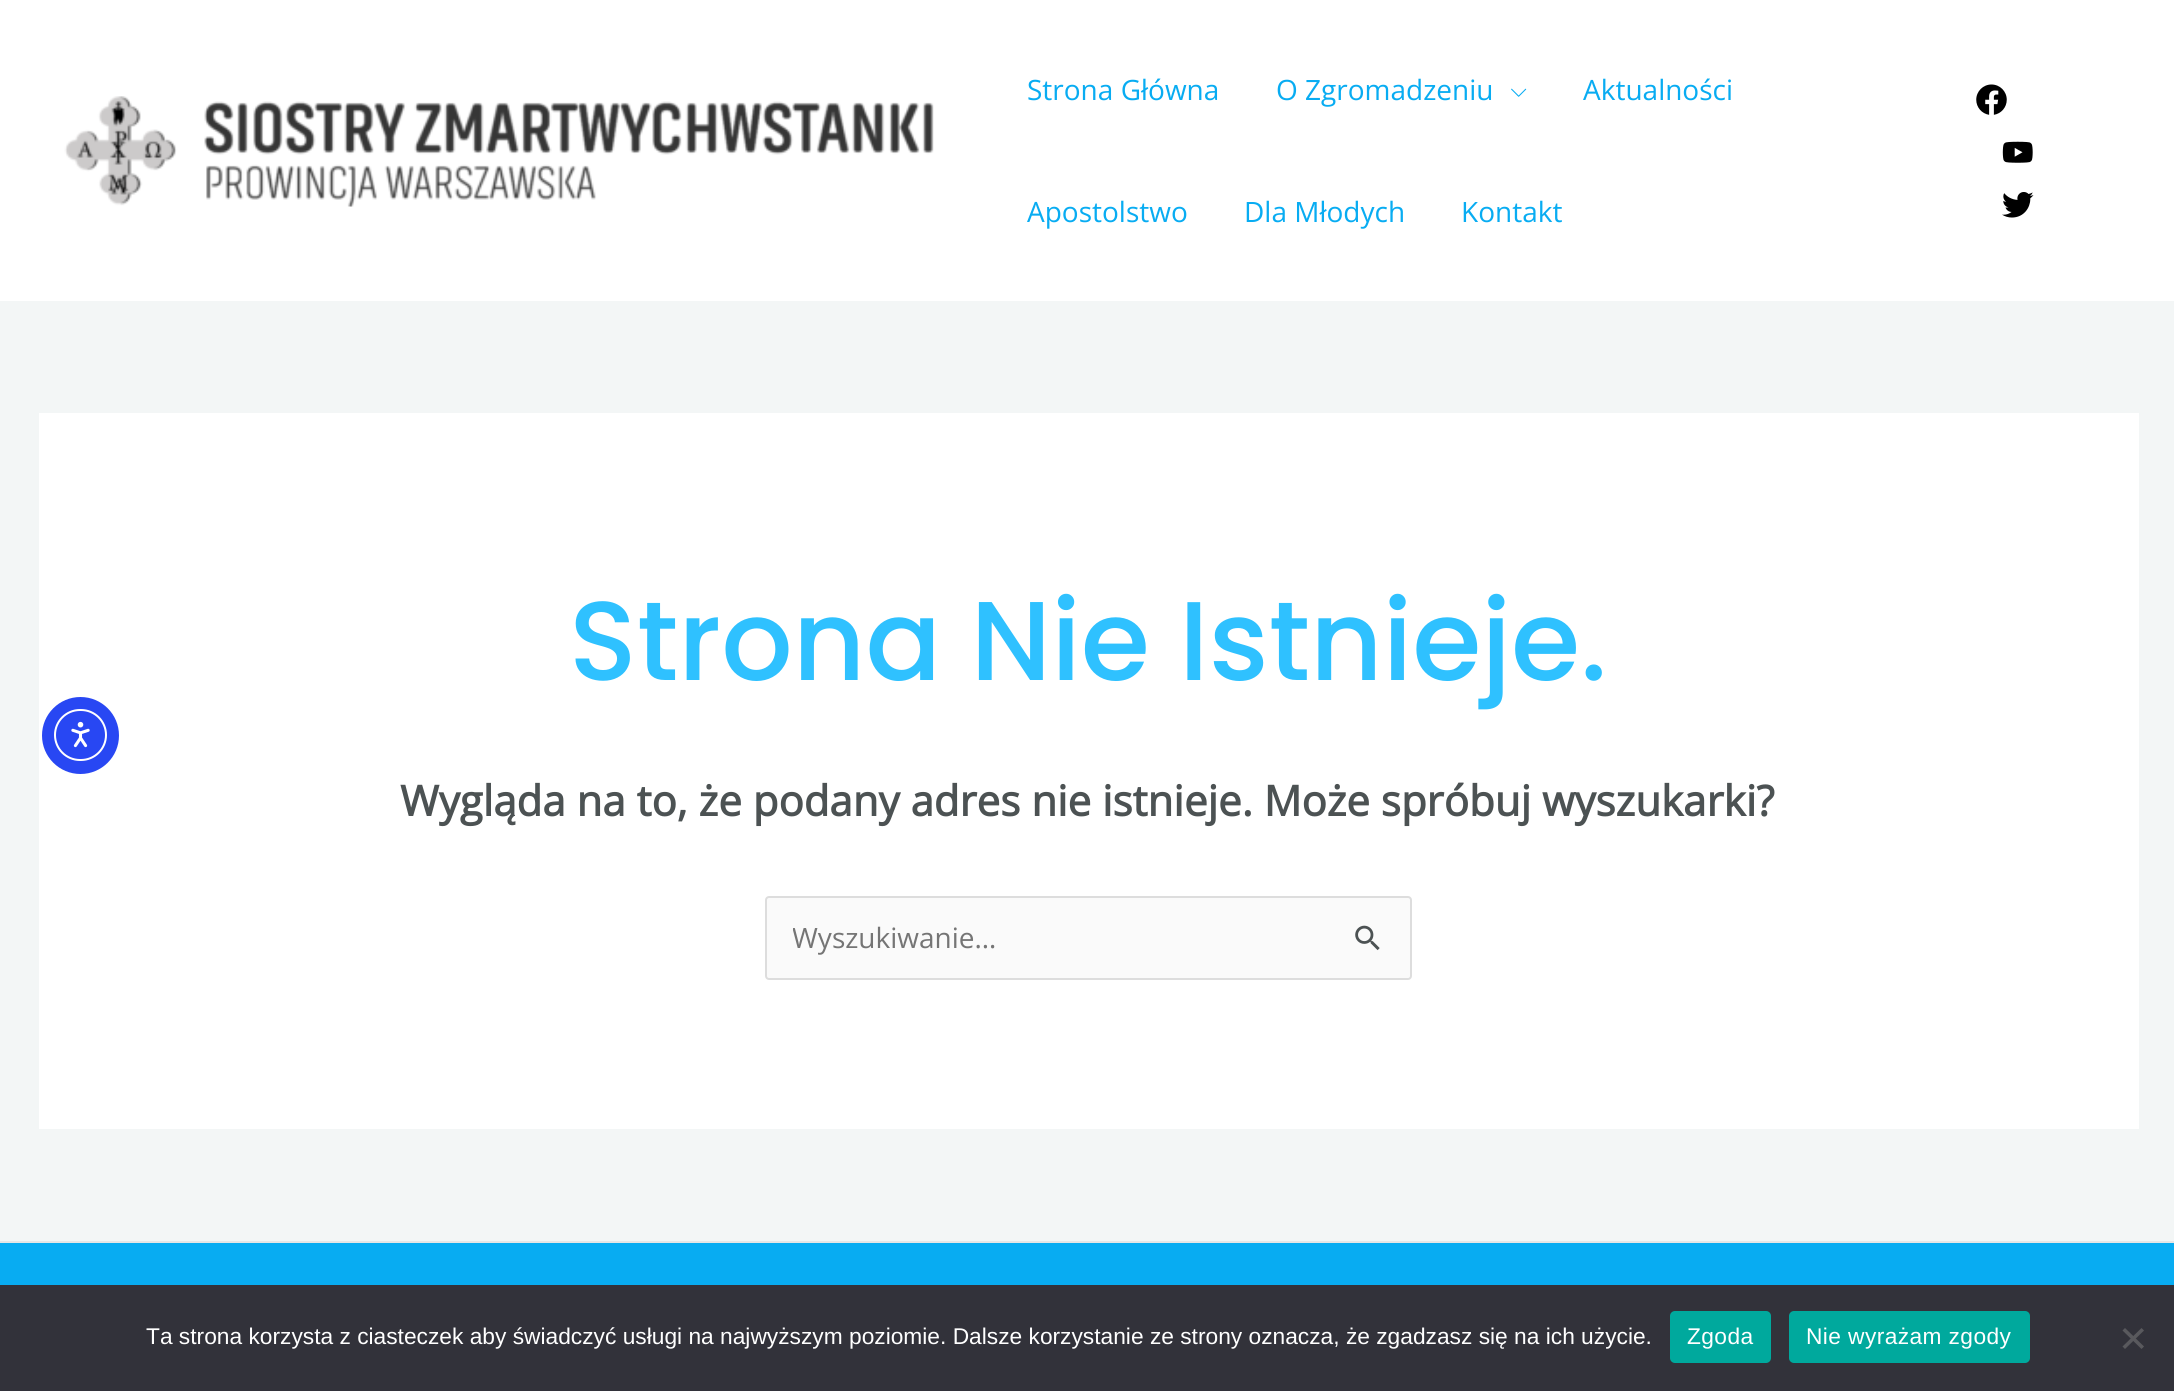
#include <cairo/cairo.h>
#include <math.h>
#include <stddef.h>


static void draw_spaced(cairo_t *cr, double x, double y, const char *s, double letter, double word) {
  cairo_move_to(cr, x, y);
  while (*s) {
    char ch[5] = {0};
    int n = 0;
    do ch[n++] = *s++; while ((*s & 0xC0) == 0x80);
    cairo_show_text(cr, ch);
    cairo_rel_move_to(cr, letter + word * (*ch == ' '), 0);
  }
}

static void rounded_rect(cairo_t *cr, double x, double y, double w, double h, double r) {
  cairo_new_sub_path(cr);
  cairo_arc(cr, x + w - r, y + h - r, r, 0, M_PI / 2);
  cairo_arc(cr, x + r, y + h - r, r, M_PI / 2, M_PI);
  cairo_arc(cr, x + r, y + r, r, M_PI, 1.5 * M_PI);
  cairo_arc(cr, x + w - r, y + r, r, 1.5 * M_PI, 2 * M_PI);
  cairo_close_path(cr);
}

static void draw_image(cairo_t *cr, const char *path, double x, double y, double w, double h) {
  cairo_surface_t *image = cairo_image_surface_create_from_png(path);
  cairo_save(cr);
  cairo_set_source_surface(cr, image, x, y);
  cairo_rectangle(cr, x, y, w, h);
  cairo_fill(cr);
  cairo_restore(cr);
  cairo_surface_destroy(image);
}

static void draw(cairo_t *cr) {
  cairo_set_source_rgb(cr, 243 / 255.0, 246 / 255.0, 246 / 255.0);
  cairo_paint(cr);
  cairo_set_source_rgb(cr, 1, 1, 1);
  cairo_rectangle(cr, 39, 413, 2100, 716);
  cairo_fill(cr);
  cairo_set_source_rgb(cr, 40 / 255.0, 71 / 255.0, 243 / 255.0);
  cairo_arc(cr, 80.5, 735.5, 38.5, 0, 2 * M_PI);
  cairo_fill(cr);
  rounded_rect(cr, 55, 710, 51, 50, 25);
  cairo_set_source_rgb(cr, 1, 1, 1);
  cairo_stroke(cr);
  draw_image(cr, "images/1.png", 71, 721, 19, 27);
  cairo_rectangle(cr, 0, 0, 2174, 301);
  cairo_fill(cr);
  draw_image(cr, "images/2.png", 64, 96, 870, 111);
  draw_image(cr, "images/3.png", 1511, 88, 16, 9);
  draw_image(cr, "images/4.png", 1976, 84, 31, 31);
  draw_image(cr, "images/5.png", 2002, 141, 31, 22);
  draw_image(cr, "images/6.png", 2002, 192, 32, 26);
  cairo_set_source_rgb(cr, 250 / 255.0, 250 / 255.0, 250 / 255.0);
  rounded_rect(cr, 766, 897, 645, 82, 3);
  cairo_fill_preserve(cr);
  cairo_set_source_rgb(cr, 221 / 255.0, 221 / 255.0, 221 / 255.0);
  cairo_stroke(cr);
  draw_image(cr, "images/7.png", 1355, 925, 25, 26);
  cairo_set_source_rgb(cr, 8 / 255.0, 172 / 255.0, 242 / 255.0);
  cairo_rectangle(cr, 0, 1243, 2174, 42);
  cairo_fill(cr);
  cairo_set_source_rgb(cr, 230 / 255.0, 230 / 255.0, 230 / 255.0);
  cairo_rectangle(cr, 0, 1241, 2174, 2);
  cairo_fill(cr);
  cairo_set_source_rgb(cr, 50 / 255.0, 50 / 255.0, 58 / 255.0);
  cairo_rectangle(cr, 0, 1285, 2174, 106);
  cairo_fill(cr);
  cairo_set_source_rgb(cr, 0, 169 / 255.0, 157 / 255.0);
  rounded_rect(cr, 1670, 1311, 101, 52, 5);
  cairo_fill(cr);
  rounded_rect(cr, 1789, 1311, 241, 52, 5);
  cairo_fill(cr);
  cairo_set_source_rgb(cr, 89 / 255.0, 89 / 255.0, 93 / 255.0);
  cairo_new_path(cr);
  cairo_move_to(cr, 2141.5, 1328);
  cairo_line_to(cr, 2144, 1330.5);
  cairo_line_to(cr, 2125, 1349);
  cairo_line_to(cr, 2122.5, 1346.5);
  cairo_close_path(cr);
  cairo_fill(cr);
  cairo_new_path(cr);
  cairo_move_to(cr, 2122.5, 1330.5);
  cairo_line_to(cr, 2125, 1328);
  cairo_line_to(cr, 2144, 1346.5);
  cairo_line_to(cr, 2141.5, 1349);
  cairo_close_path(cr);
  cairo_fill(cr);
  cairo_select_font_face(cr, "Open Sans", CAIRO_FONT_SLANT_NORMAL, CAIRO_FONT_WEIGHT_NORMAL);
  cairo_set_font_size(cr, 28);
  cairo_set_source_rgb(cr, 8 / 255.0, 172 / 255.0, 242 / 255.0);
  cairo_move_to(cr, 1027, 100);
  cairo_show_text(cr, "Strona Główna");
  cairo_move_to(cr, 1276, 100);
  cairo_show_text(cr, "O Zgromadzeniu");
  cairo_move_to(cr, 1583, 100);
  cairo_show_text(cr, "Aktualności");
  cairo_move_to(cr, 1027, 222);
  cairo_show_text(cr, "Apostolstwo");
  cairo_move_to(cr, 1244, 222);
  cairo_show_text(cr, "Dla Młodych");
  cairo_move_to(cr, 1461, 222);
  cairo_show_text(cr, "Kontakt");
  cairo_select_font_face(cr, "Poppins Medium", CAIRO_FONT_SLANT_NORMAL, CAIRO_FONT_WEIGHT_NORMAL);
  cairo_set_font_size(cr, 112);
  cairo_set_source_rgb(cr, 47 / 255.0, 193 / 255.0, 1);
  cairo_move_to(cr, 569, 680);
  cairo_show_text(cr, "Strona Nie Istnieje.");
  cairo_select_font_face(cr, "Open Sans", CAIRO_FONT_SLANT_NORMAL, CAIRO_FONT_WEIGHT_BOLD);
  cairo_set_font_size(cr, 42);
  cairo_set_source_rgb(cr, 76 / 255.0, 82 / 255.0, 83 / 255.0);
  cairo_move_to(cr, 400, 816);
  cairo_show_text(cr, "Wygląda na to, że podany adres nie istnieje. Może spróbuj wyszukarki?");
  cairo_save(cr);
  cairo_rectangle(cr, 793, 919, 532, 38);
  cairo_clip(cr);
  cairo_select_font_face(cr, "Open Sans", CAIRO_FONT_SLANT_NORMAL, CAIRO_FONT_WEIGHT_NORMAL);
  cairo_set_font_size(cr, 28);
  cairo_set_source_rgb(cr, 117 / 255.0, 117 / 255.0, 117 / 255.0);
  cairo_move_to(cr, 792, 948);
  cairo_show_text(cr, "Wyszukiwanie…");
  cairo_restore(cr);
  cairo_select_font_face(cr, "Liberation Sans", CAIRO_FONT_SLANT_NORMAL, CAIRO_FONT_WEIGHT_NORMAL);
  cairo_set_font_size(cr, 22.75);
  cairo_set_source_rgb(cr, 1, 1, 1);
  cairo_move_to(cr, 146, 1344);
  cairo_show_text(cr, "Ta strona korzysta z ciasteczek aby świadczyć usługi na najwyższym poziomie. Dalsze korzystanie ze strony oznacza, że zgadzasz się na ich użycie.");
  draw_spaced(cr, 1687, 1344, "Zgoda", 0.4, 0);
  draw_spaced(cr, 1806, 1344, "Nie wyrażam zgody", 0.4, 0);
}

int main(void) {
  cairo_surface_t *surface = cairo_image_surface_create(CAIRO_FORMAT_RGB24, 2174, 1391);
  cairo_t *cr = cairo_create(surface);
  cairo_font_options_t *options = cairo_font_options_create();
  cairo_font_options_set_hint_metrics(options, CAIRO_HINT_METRICS_OFF);
  cairo_font_options_set_hint_style(options, CAIRO_HINT_STYLE_NONE);
  cairo_set_font_options(cr, options);
  cairo_set_miter_limit(cr, 4);
  draw(cr);
  cairo_surface_write_to_png(surface, "out.png");
  cairo_font_options_destroy(options);
  cairo_destroy(cr);
  cairo_surface_destroy(surface);
  return 0;
}
